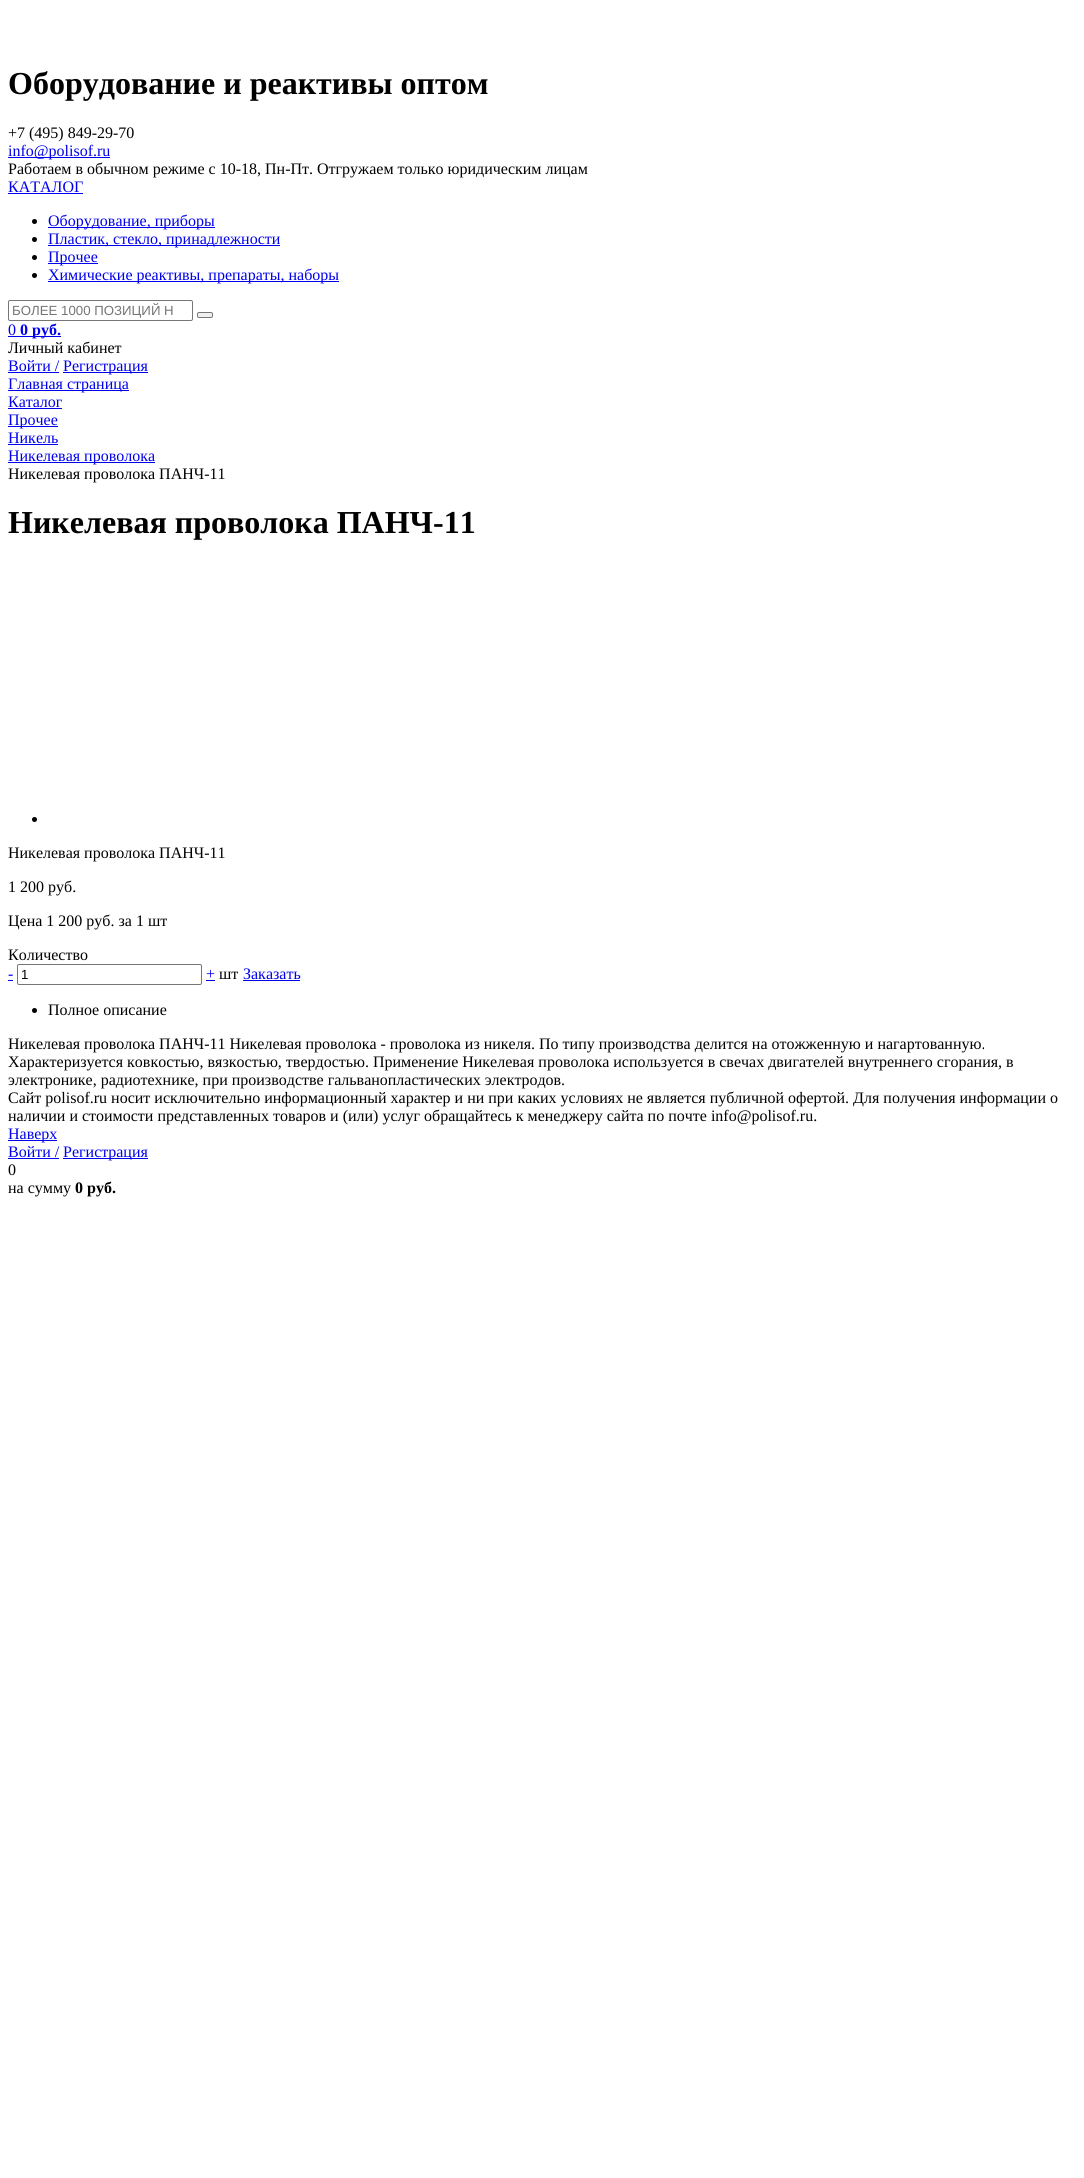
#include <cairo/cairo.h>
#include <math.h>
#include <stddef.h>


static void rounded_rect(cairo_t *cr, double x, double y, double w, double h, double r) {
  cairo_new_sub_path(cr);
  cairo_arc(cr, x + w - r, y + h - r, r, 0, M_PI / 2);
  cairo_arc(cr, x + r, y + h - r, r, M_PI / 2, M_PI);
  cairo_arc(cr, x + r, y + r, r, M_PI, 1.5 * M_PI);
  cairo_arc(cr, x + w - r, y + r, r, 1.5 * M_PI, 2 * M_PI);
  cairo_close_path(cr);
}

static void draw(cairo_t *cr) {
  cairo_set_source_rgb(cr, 1, 1, 1);
  cairo_paint(cr);
  cairo_set_source_rgb(cr, 0, 0, 238 / 255.0);
  cairo_rectangle(cr, 8, 157, 102, 1);
  cairo_fill(cr);
  cairo_rectangle(cr, 8, 193, 75, 1);
  cairo_fill(cr);
  cairo_set_source_rgb(cr, 0, 0, 0);
  cairo_arc(cr, 34.5, 221.5, 2.5, 0, 2 * M_PI);
  cairo_fill(cr);
  cairo_set_source_rgb(cr, 0, 0, 238 / 255.0);
  cairo_rectangle(cr, 48, 227, 167, 1);
  cairo_fill(cr);
  cairo_set_source_rgb(cr, 0, 0, 0);
  cairo_arc(cr, 34.5, 239.5, 2.5, 0, 2 * M_PI);
  cairo_fill(cr);
  cairo_set_source_rgb(cr, 0, 0, 238 / 255.0);
  cairo_rectangle(cr, 48, 245, 232, 1);
  cairo_fill(cr);
  cairo_set_source_rgb(cr, 0, 0, 0);
  cairo_arc(cr, 34.5, 257.5, 2.5, 0, 2 * M_PI);
  cairo_fill(cr);
  cairo_set_source_rgb(cr, 0, 0, 238 / 255.0);
  cairo_rectangle(cr, 48, 263, 50, 1);
  cairo_fill(cr);
  cairo_set_source_rgb(cr, 0, 0, 0);
  cairo_arc(cr, 34.5, 275.5, 2.5, 0, 2 * M_PI);
  cairo_fill(cr);
  cairo_set_source_rgb(cr, 0, 0, 238 / 255.0);
  cairo_rectangle(cr, 48, 281, 291, 1);
  cairo_fill(cr);
  rounded_rect(cr, 8.5, 300.5, 184, 20, 1.5);
  cairo_set_source_rgb(cr, 118 / 255.0, 118 / 255.0, 118 / 255.0);
  cairo_set_line_width(cr, 1);
  cairo_stroke(cr);
  cairo_set_source_rgb(cr, 239 / 255.0, 239 / 255.0, 239 / 255.0);
  rounded_rect(cr, 197.5, 312.5, 15, 5, 1.5);
  cairo_fill_preserve(cr);
  cairo_set_source_rgb(cr, 118 / 255.0, 118 / 255.0, 118 / 255.0);
  cairo_stroke(cr);
  cairo_set_source_rgb(cr, 0, 0, 238 / 255.0);
  cairo_rectangle(cr, 8, 336, 53, 1);
  cairo_fill(cr);
  cairo_rectangle(cr, 8, 372, 51, 1);
  cairo_fill(cr);
  cairo_rectangle(cr, 63, 372, 85, 1);
  cairo_fill(cr);
  cairo_rectangle(cr, 8, 390, 121, 1);
  cairo_fill(cr);
  cairo_rectangle(cr, 8, 408, 54, 1);
  cairo_fill(cr);
  cairo_rectangle(cr, 8, 426, 50, 1);
  cairo_fill(cr);
  cairo_rectangle(cr, 8, 444, 50, 1);
  cairo_fill(cr);
  cairo_rectangle(cr, 8, 462, 147, 1);
  cairo_fill(cr);
  cairo_set_source_rgb(cr, 0, 0, 0);
  cairo_arc(cr, 34.5, 819.5, 2.5, 0, 2 * M_PI);
  cairo_fill(cr);
  cairo_set_source_rgb(cr, 0, 0, 238 / 255.0);
  cairo_rectangle(cr, 8, 980, 5, 1);
  cairo_fill(cr);
  rounded_rect(cr, 17.5, 964.5, 184, 20, 1.5);
  cairo_set_source_rgb(cr, 118 / 255.0, 118 / 255.0, 118 / 255.0);
  cairo_stroke(cr);
  cairo_set_source_rgb(cr, 0, 0, 238 / 255.0);
  cairo_rectangle(cr, 206, 980, 9, 1);
  cairo_fill(cr);
  cairo_rectangle(cr, 243, 980, 57, 1);
  cairo_fill(cr);
  cairo_set_source_rgb(cr, 0, 0, 0);
  cairo_arc(cr, 34.5, 1010.5, 2.5, 0, 2 * M_PI);
  cairo_fill(cr);
  cairo_set_source_rgb(cr, 0, 0, 238 / 255.0);
  cairo_rectangle(cr, 8, 1140, 49, 1);
  cairo_fill(cr);
  cairo_rectangle(cr, 8, 1158, 51, 1);
  cairo_fill(cr);
  cairo_rectangle(cr, 63, 1158, 85, 1);
  cairo_fill(cr);
  cairo_select_font_face(cr, "Liberation Serif", CAIRO_FONT_SLANT_NORMAL, CAIRO_FONT_WEIGHT_BOLD);
  cairo_set_font_size(cr, 32);
  cairo_set_source_rgb(cr, 0, 0, 0);
  cairo_move_to(cr, 8, 94);
  cairo_show_text(cr, "Оборудование и реактивы оптом");
  cairo_select_font_face(cr, "Liberation Serif", CAIRO_FONT_SLANT_NORMAL, CAIRO_FONT_WEIGHT_NORMAL);
  cairo_set_font_size(cr, 16);
  cairo_move_to(cr, 8, 138);
  cairo_show_text(cr, "+7 (495) 849-29-70");
  cairo_set_source_rgb(cr, 0, 0, 238 / 255.0);
  cairo_move_to(cr, 8, 156);
  cairo_show_text(cr, "info@polisof.ru");
  cairo_set_source_rgb(cr, 0, 0, 0);
  cairo_move_to(cr, 8, 174);
  cairo_show_text(cr, "Работаем в обычном режиме с 10-18, Пн-Пт. Отгружаем только юридическим лицам");
  cairo_set_source_rgb(cr, 0, 0, 238 / 255.0);
  cairo_move_to(cr, 8, 192);
  cairo_show_text(cr, "КАТАЛОГ");
  cairo_move_to(cr, 48, 226);
  cairo_show_text(cr, "Оборудование, приборы");
  cairo_move_to(cr, 48, 244);
  cairo_show_text(cr, "Пластик, стекло, принадлежности");
  cairo_move_to(cr, 48, 262);
  cairo_show_text(cr, "Прочее");
  cairo_move_to(cr, 48, 280);
  cairo_show_text(cr, "Химические реактивы, препараты, наборы");
  cairo_select_font_face(cr, "Liberation Sans", CAIRO_FONT_SLANT_NORMAL, CAIRO_FONT_WEIGHT_NORMAL);
  cairo_set_font_size(cr, 13.25);
  cairo_set_source_rgb(cr, 117 / 255.0, 117 / 255.0, 117 / 255.0);
  cairo_move_to(cr, 12, 315);
  cairo_show_text(cr, "БОЛЕЕ 1000 ПОЗИЦИЙ Н");
  cairo_select_font_face(cr, "Liberation Serif", CAIRO_FONT_SLANT_NORMAL, CAIRO_FONT_WEIGHT_NORMAL);
  cairo_set_font_size(cr, 16);
  cairo_set_source_rgb(cr, 0, 0, 238 / 255.0);
  cairo_move_to(cr, 8, 335);
  cairo_show_text(cr, "0");
  cairo_select_font_face(cr, "Liberation Serif", CAIRO_FONT_SLANT_NORMAL, CAIRO_FONT_WEIGHT_BOLD);
  cairo_move_to(cr, 20, 335);
  cairo_show_text(cr, "0 руб.");
  cairo_select_font_face(cr, "Liberation Serif", CAIRO_FONT_SLANT_NORMAL, CAIRO_FONT_WEIGHT_NORMAL);
  cairo_set_source_rgb(cr, 0, 0, 0);
  cairo_move_to(cr, 8, 353);
  cairo_show_text(cr, "Личный кабинет");
  cairo_set_source_rgb(cr, 0, 0, 238 / 255.0);
  cairo_move_to(cr, 8, 371);
  cairo_show_text(cr, "Войти /");
  cairo_move_to(cr, 63, 371);
  cairo_show_text(cr, "Регистрация");
  cairo_move_to(cr, 8, 389);
  cairo_show_text(cr, "Главная страница");
  cairo_move_to(cr, 8, 407);
  cairo_show_text(cr, "Каталог");
  cairo_move_to(cr, 8, 425);
  cairo_show_text(cr, "Прочее");
  cairo_move_to(cr, 8, 443);
  cairo_show_text(cr, "Никель");
  cairo_move_to(cr, 8, 461);
  cairo_show_text(cr, "Никелевая проволока");
  cairo_set_source_rgb(cr, 0, 0, 0);
  cairo_move_to(cr, 8, 479);
  cairo_show_text(cr, "Никелевая проволока ПАНЧ-11");
  cairo_select_font_face(cr, "Liberation Serif", CAIRO_FONT_SLANT_NORMAL, CAIRO_FONT_WEIGHT_BOLD);
  cairo_set_font_size(cr, 32);
  cairo_move_to(cr, 8, 533);
  cairo_show_text(cr, "Никелевая проволока ПАНЧ-11");
  cairo_select_font_face(cr, "Liberation Serif", CAIRO_FONT_SLANT_NORMAL, CAIRO_FONT_WEIGHT_NORMAL);
  cairo_set_font_size(cr, 16);
  cairo_move_to(cr, 8, 858);
  cairo_show_text(cr, "Никелевая проволока ПАНЧ-11");
  cairo_move_to(cr, 8, 892);
  cairo_show_text(cr, "1 200 руб.");
  cairo_move_to(cr, 8, 926);
  cairo_show_text(cr, "Цена 1 200 руб. за 1 шт");
  cairo_move_to(cr, 8, 960);
  cairo_show_text(cr, "Количество");
  cairo_set_source_rgb(cr, 0, 0, 238 / 255.0);
  cairo_move_to(cr, 8, 979);
  cairo_show_text(cr, "-");
  cairo_select_font_face(cr, "Liberation Sans", CAIRO_FONT_SLANT_NORMAL, CAIRO_FONT_WEIGHT_NORMAL);
  cairo_set_font_size(cr, 13.25);
  cairo_set_source_rgb(cr, 0, 0, 0);
  cairo_move_to(cr, 21, 979);
  cairo_show_text(cr, "1");
  cairo_select_font_face(cr, "Liberation Serif", CAIRO_FONT_SLANT_NORMAL, CAIRO_FONT_WEIGHT_NORMAL);
  cairo_set_font_size(cr, 16);
  cairo_set_source_rgb(cr, 0, 0, 238 / 255.0);
  cairo_move_to(cr, 206, 979);
  cairo_show_text(cr, "+");
  cairo_set_source_rgb(cr, 0, 0, 0);
  cairo_move_to(cr, 219, 979);
  cairo_show_text(cr, "шт");
  cairo_set_source_rgb(cr, 0, 0, 238 / 255.0);
  cairo_move_to(cr, 243, 979);
  cairo_show_text(cr, "Заказать");
  cairo_set_source_rgb(cr, 0, 0, 0);
  cairo_move_to(cr, 48, 1015);
  cairo_show_text(cr, "Полное описание");
  cairo_move_to(cr, 8, 1049);
  cairo_show_text(cr, "Никелевая проволока ПАНЧ-11 Никелевая проволока - проволока из никеля. По типу производства делится на отожженную и нагартованную.");
  cairo_move_to(cr, 8, 1067);
  cairo_show_text(cr, "Характеризуется ковкостью, вязкостью, твердостью. Применение Никелевая проволока используется в свечах двигателей внутреннего сгорания, в");
  cairo_move_to(cr, 8, 1085);
  cairo_show_text(cr, "электронике, радиотехнике, при производстве гальванопластических электродов.");
  cairo_move_to(cr, 8, 1103);
  cairo_show_text(cr, "Сайт polisof.ru носит исключительно информационный характер и ни при каких условиях не является публичной офертой. Для получения информации о");
  cairo_move_to(cr, 8, 1121);
  cairo_show_text(cr, "наличии и стоимости представленных товаров и (или) услуг обращайтесь к менеджеру сайта по почте info@polisof.ru.");
  cairo_set_source_rgb(cr, 0, 0, 238 / 255.0);
  cairo_move_to(cr, 8, 1139);
  cairo_show_text(cr, "Наверх");
  cairo_move_to(cr, 8, 1157);
  cairo_show_text(cr, "Войти /");
  cairo_move_to(cr, 63, 1157);
  cairo_show_text(cr, "Регистрация");
  cairo_set_source_rgb(cr, 0, 0, 0);
  cairo_move_to(cr, 8, 1175);
  cairo_show_text(cr, "0");
  cairo_move_to(cr, 8, 1193);
  cairo_show_text(cr, "на сумму");
  cairo_select_font_face(cr, "Liberation Serif", CAIRO_FONT_SLANT_NORMAL, CAIRO_FONT_WEIGHT_BOLD);
  cairo_move_to(cr, 75, 1193);
  cairo_show_text(cr, "0 руб.");
}

int main(void) {
  cairo_surface_t *surface = cairo_image_surface_create(CAIRO_FORMAT_RGB24, 1084, 2178);
  cairo_t *cr = cairo_create(surface);
  cairo_font_options_t *options = cairo_font_options_create();
  cairo_font_options_set_hint_metrics(options, CAIRO_HINT_METRICS_OFF);
  cairo_font_options_set_hint_style(options, CAIRO_HINT_STYLE_NONE);
  cairo_set_font_options(cr, options);
  cairo_set_miter_limit(cr, 4);
  draw(cr);
  cairo_surface_write_to_png(surface, "out.png");
  cairo_font_options_destroy(options);
  cairo_destroy(cr);
  cairo_surface_destroy(surface);
  return 0;
}
